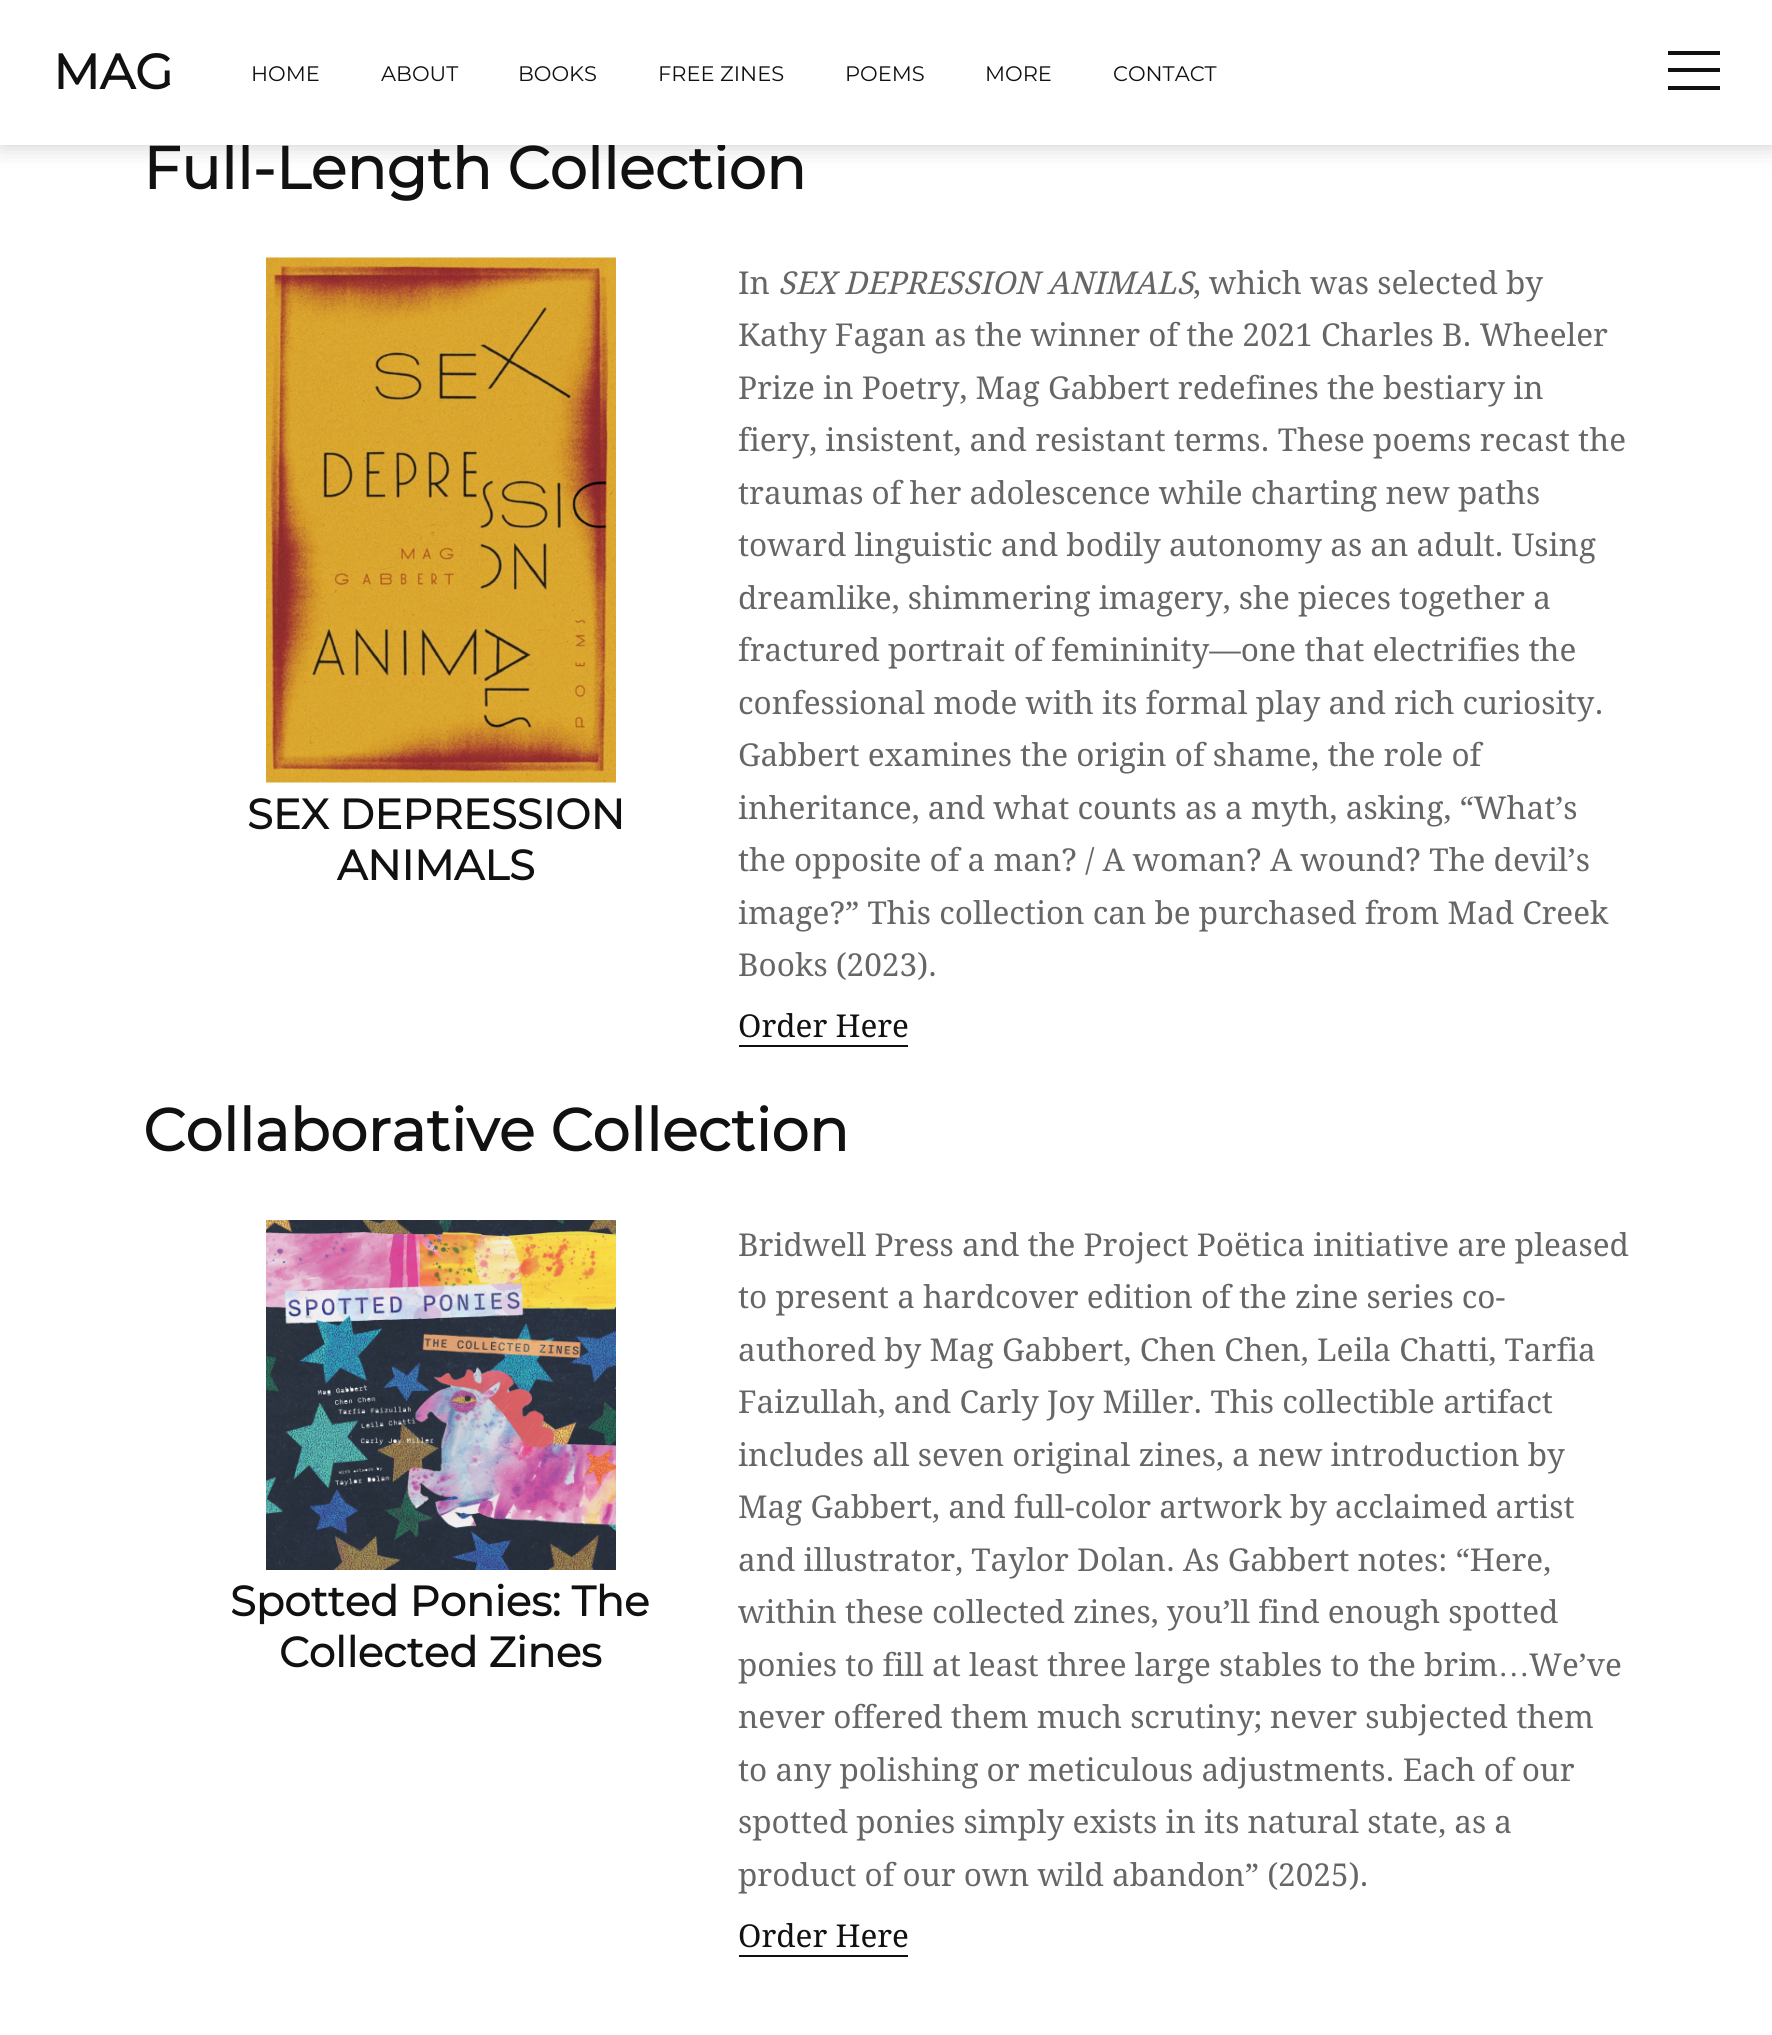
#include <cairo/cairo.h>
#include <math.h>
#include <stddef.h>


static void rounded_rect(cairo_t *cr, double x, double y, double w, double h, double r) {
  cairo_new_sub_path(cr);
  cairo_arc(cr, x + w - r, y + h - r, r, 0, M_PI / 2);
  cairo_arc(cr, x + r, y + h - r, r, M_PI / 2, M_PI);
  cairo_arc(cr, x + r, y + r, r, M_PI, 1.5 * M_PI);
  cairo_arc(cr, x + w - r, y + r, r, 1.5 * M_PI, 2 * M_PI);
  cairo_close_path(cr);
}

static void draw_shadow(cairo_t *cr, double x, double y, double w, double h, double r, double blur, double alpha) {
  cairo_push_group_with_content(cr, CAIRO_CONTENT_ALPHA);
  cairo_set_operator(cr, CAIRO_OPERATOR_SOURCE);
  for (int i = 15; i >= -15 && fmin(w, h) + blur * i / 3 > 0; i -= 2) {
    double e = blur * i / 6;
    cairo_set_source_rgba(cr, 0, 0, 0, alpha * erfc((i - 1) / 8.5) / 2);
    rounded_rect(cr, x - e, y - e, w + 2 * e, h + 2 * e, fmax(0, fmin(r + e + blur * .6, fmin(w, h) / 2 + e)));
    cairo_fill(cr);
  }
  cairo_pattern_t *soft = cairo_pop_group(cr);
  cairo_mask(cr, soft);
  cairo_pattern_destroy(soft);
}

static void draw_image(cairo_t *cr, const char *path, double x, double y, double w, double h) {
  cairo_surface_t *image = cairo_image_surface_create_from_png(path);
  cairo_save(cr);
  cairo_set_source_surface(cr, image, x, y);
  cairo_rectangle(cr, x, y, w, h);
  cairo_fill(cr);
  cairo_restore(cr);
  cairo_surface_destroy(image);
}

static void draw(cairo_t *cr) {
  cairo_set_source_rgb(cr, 1, 1, 1);
  cairo_paint(cr);
  cairo_set_source_rgb(cr, 204 / 255.0, 204 / 255.0, 204 / 255.0);
  draw_shadow(cr, 0, 0, 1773, 145, 0, 11.5, 1);
  draw_image(cr, "images/1.png", 266, 257, 350, 526);
  cairo_set_source_rgb(cr, 17 / 255.0, 17 / 255.0, 17 / 255.0);
  cairo_rectangle(cr, 739, 1045, 169, 2);
  cairo_fill(cr);
  draw_image(cr, "images/2.png", 266, 1220, 350, 350);
  cairo_rectangle(cr, 739, 1955, 169, 2);
  cairo_fill(cr);
  cairo_select_font_face(cr, "Montserrat", CAIRO_FONT_SLANT_NORMAL, CAIRO_FONT_WEIGHT_BOLD);
  cairo_set_font_size(cr, 59.5);
  cairo_move_to(cr, 143, 189);
  cairo_show_text(cr, "Full-Length Collection");
  cairo_set_source_rgb(cr, 1, 1, 1);
  cairo_rectangle(cr, 0, 0, 1772, 145);
  cairo_fill(cr);
  cairo_set_source_rgb(cr, 17 / 255.0, 17 / 255.0, 17 / 255.0);
  cairo_rectangle(cr, 1668, 86, 52, 4);
  cairo_fill(cr);
  cairo_rectangle(cr, 1668, 51, 52, 4);
  cairo_fill(cr);
  cairo_rectangle(cr, 1668, 68, 52, 4);
  cairo_fill(cr);
  cairo_select_font_face(cr, "Montserrat Thin", CAIRO_FONT_SLANT_NORMAL, CAIRO_FONT_WEIGHT_NORMAL);
  cairo_set_font_size(cr, 21);
  cairo_move_to(cr, 1113, 81);
  cairo_show_text(cr, "CONTACT");
  cairo_move_to(cr, 985, 81);
  cairo_show_text(cr, "MORE");
  cairo_move_to(cr, 845, 81);
  cairo_show_text(cr, "POEMS");
  cairo_move_to(cr, 658, 81);
  cairo_show_text(cr, "FREE ZINES");
  cairo_move_to(cr, 518, 81);
  cairo_show_text(cr, "BOOKS");
  cairo_move_to(cr, 381, 81);
  cairo_show_text(cr, "ABOUT");
  cairo_move_to(cr, 251, 81);
  cairo_show_text(cr, "HOME");
  cairo_select_font_face(cr, "Montserrat", CAIRO_FONT_SLANT_NORMAL, CAIRO_FONT_WEIGHT_BOLD);
  cairo_set_font_size(cr, 49);
  cairo_move_to(cr, 53, 89);
  cairo_show_text(cr, "MAG");
  cairo_set_font_size(cr, 42);
  cairo_move_to(cr, 247, 829);
  cairo_show_text(cr, "SEX DEPRESSION");
  cairo_move_to(cr, 337, 880);
  cairo_show_text(cr, "ANIMALS");
  cairo_select_font_face(cr, "Droid Serif", CAIRO_FONT_SLANT_NORMAL, CAIRO_FONT_WEIGHT_NORMAL);
  cairo_set_font_size(cr, 31.5);
  cairo_set_source_rgb(cr, 102 / 255.0, 102 / 255.0, 102 / 255.0);
  cairo_move_to(cr, 738, 294);
  cairo_show_text(cr, "In");
  cairo_select_font_face(cr, "Droid Serif", CAIRO_FONT_SLANT_ITALIC, CAIRO_FONT_WEIGHT_NORMAL);
  cairo_move_to(cr, 778, 294);
  cairo_show_text(cr, "SEX DEPRESSION ANIMALS");
  cairo_select_font_face(cr, "Droid Serif", CAIRO_FONT_SLANT_NORMAL, CAIRO_FONT_WEIGHT_NORMAL);
  cairo_move_to(cr, 1193, 294);
  cairo_show_text(cr, ", which was selected by");
  cairo_move_to(cr, 738, 346);
  cairo_show_text(cr, "Kathy Fagan as the winner of the 2021 Charles B. Wheeler");
  cairo_move_to(cr, 738, 399);
  cairo_show_text(cr, "Prize in Poetry, Mag Gabbert redefines the bestiary in");
  cairo_move_to(cr, 738, 451);
  cairo_show_text(cr, "fiery, insistent, and resistant terms. These poems recast the");
  cairo_move_to(cr, 738, 504);
  cairo_show_text(cr, "traumas of her adolescence while charting new paths");
  cairo_move_to(cr, 738, 556);
  cairo_show_text(cr, "toward linguistic and bodily autonomy as an adult. Using");
  cairo_move_to(cr, 738, 609);
  cairo_show_text(cr, "dreamlike, shimmering imagery, she pieces together a");
  cairo_move_to(cr, 738, 661);
  cairo_show_text(cr, "fractured portrait of femininity—one that electrifies the");
  cairo_move_to(cr, 738, 714);
  cairo_show_text(cr, "confessional mode with its formal play and rich curiosity.");
  cairo_move_to(cr, 738, 766);
  cairo_show_text(cr, "Gabbert examines the origin of shame, the role of");
  cairo_move_to(cr, 738, 819);
  cairo_show_text(cr, "inheritance, and what counts as a myth, asking, “What’s");
  cairo_move_to(cr, 738, 871);
  cairo_show_text(cr, "the opposite of a man? / A woman? A wound? The devil’s");
  cairo_move_to(cr, 738, 924);
  cairo_show_text(cr, "image?” This collection can be purchased from Mad Creek");
  cairo_move_to(cr, 738, 976);
  cairo_show_text(cr, "Books (2023).");
  cairo_set_source_rgb(cr, 17 / 255.0, 17 / 255.0, 17 / 255.0);
  cairo_move_to(cr, 738, 1037);
  cairo_show_text(cr, "Order Here");
  cairo_select_font_face(cr, "Montserrat", CAIRO_FONT_SLANT_NORMAL, CAIRO_FONT_WEIGHT_BOLD);
  cairo_set_font_size(cr, 59.5);
  cairo_move_to(cr, 143, 1151);
  cairo_show_text(cr, "Collaborative Collection");
  cairo_set_font_size(cr, 42);
  cairo_move_to(cr, 230, 1616);
  cairo_show_text(cr, "Spotted Ponies: The");
  cairo_move_to(cr, 279, 1667);
  cairo_show_text(cr, "Collected Zines");
  cairo_select_font_face(cr, "Droid Serif", CAIRO_FONT_SLANT_NORMAL, CAIRO_FONT_WEIGHT_NORMAL);
  cairo_set_font_size(cr, 31.5);
  cairo_set_source_rgb(cr, 102 / 255.0, 102 / 255.0, 102 / 255.0);
  cairo_move_to(cr, 738, 1256);
  cairo_show_text(cr, "Bridwell Press and the Project Poëtica initiative are pleased");
  cairo_move_to(cr, 738, 1308);
  cairo_show_text(cr, "to present a hardcover edition of the zine series co-");
  cairo_move_to(cr, 738, 1361);
  cairo_show_text(cr, "authored by Mag Gabbert, Chen Chen, Leila Chatti, Tarfia");
  cairo_move_to(cr, 738, 1413);
  cairo_show_text(cr, "Faizullah, and Carly Joy Miller. This collectible artifact");
  cairo_move_to(cr, 738, 1466);
  cairo_show_text(cr, "includes all seven original zines, a new introduction by");
  cairo_move_to(cr, 738, 1518);
  cairo_show_text(cr, "Mag Gabbert, and full-color artwork by acclaimed artist");
  cairo_move_to(cr, 738, 1571);
  cairo_show_text(cr, "and illustrator, Taylor Dolan. As Gabbert notes: “Here,");
  cairo_move_to(cr, 738, 1623);
  cairo_show_text(cr, "within these collected zines, you’ll find enough spotted");
  cairo_move_to(cr, 738, 1676);
  cairo_show_text(cr, "ponies to fill at least three large stables to the brim");
  cairo_select_font_face(cr, "Liberation Serif", CAIRO_FONT_SLANT_NORMAL, CAIRO_FONT_WEIGHT_NORMAL);
  cairo_move_to(cr, 1498, 1676);
  cairo_show_text(cr, "…");
  cairo_select_font_face(cr, "Droid Serif", CAIRO_FONT_SLANT_NORMAL, CAIRO_FONT_WEIGHT_NORMAL);
  cairo_move_to(cr, 1529, 1676);
  cairo_show_text(cr, "We’ve");
  cairo_move_to(cr, 738, 1728);
  cairo_show_text(cr, "never offered them much scrutiny; never subjected them");
  cairo_move_to(cr, 738, 1781);
  cairo_show_text(cr, "to any polishing or meticulous adjustments. Each of our");
  cairo_move_to(cr, 738, 1833);
  cairo_show_text(cr, "spotted ponies simply exists in its natural state, as a");
  cairo_move_to(cr, 738, 1886);
  cairo_show_text(cr, "product of our own wild abandon” (2025).");
  cairo_set_source_rgb(cr, 17 / 255.0, 17 / 255.0, 17 / 255.0);
  cairo_move_to(cr, 738, 1947);
  cairo_show_text(cr, "Order Here");
}

int main(void) {
  cairo_surface_t *surface = cairo_image_surface_create(CAIRO_FORMAT_RGB24, 1772, 2035);
  cairo_t *cr = cairo_create(surface);
  cairo_font_options_t *options = cairo_font_options_create();
  cairo_font_options_set_hint_metrics(options, CAIRO_HINT_METRICS_OFF);
  cairo_font_options_set_hint_style(options, CAIRO_HINT_STYLE_NONE);
  cairo_set_font_options(cr, options);
  cairo_set_miter_limit(cr, 4);
  draw(cr);
  cairo_surface_write_to_png(surface, "out.png");
  cairo_font_options_destroy(options);
  cairo_destroy(cr);
  cairo_surface_destroy(surface);
  return 0;
}
